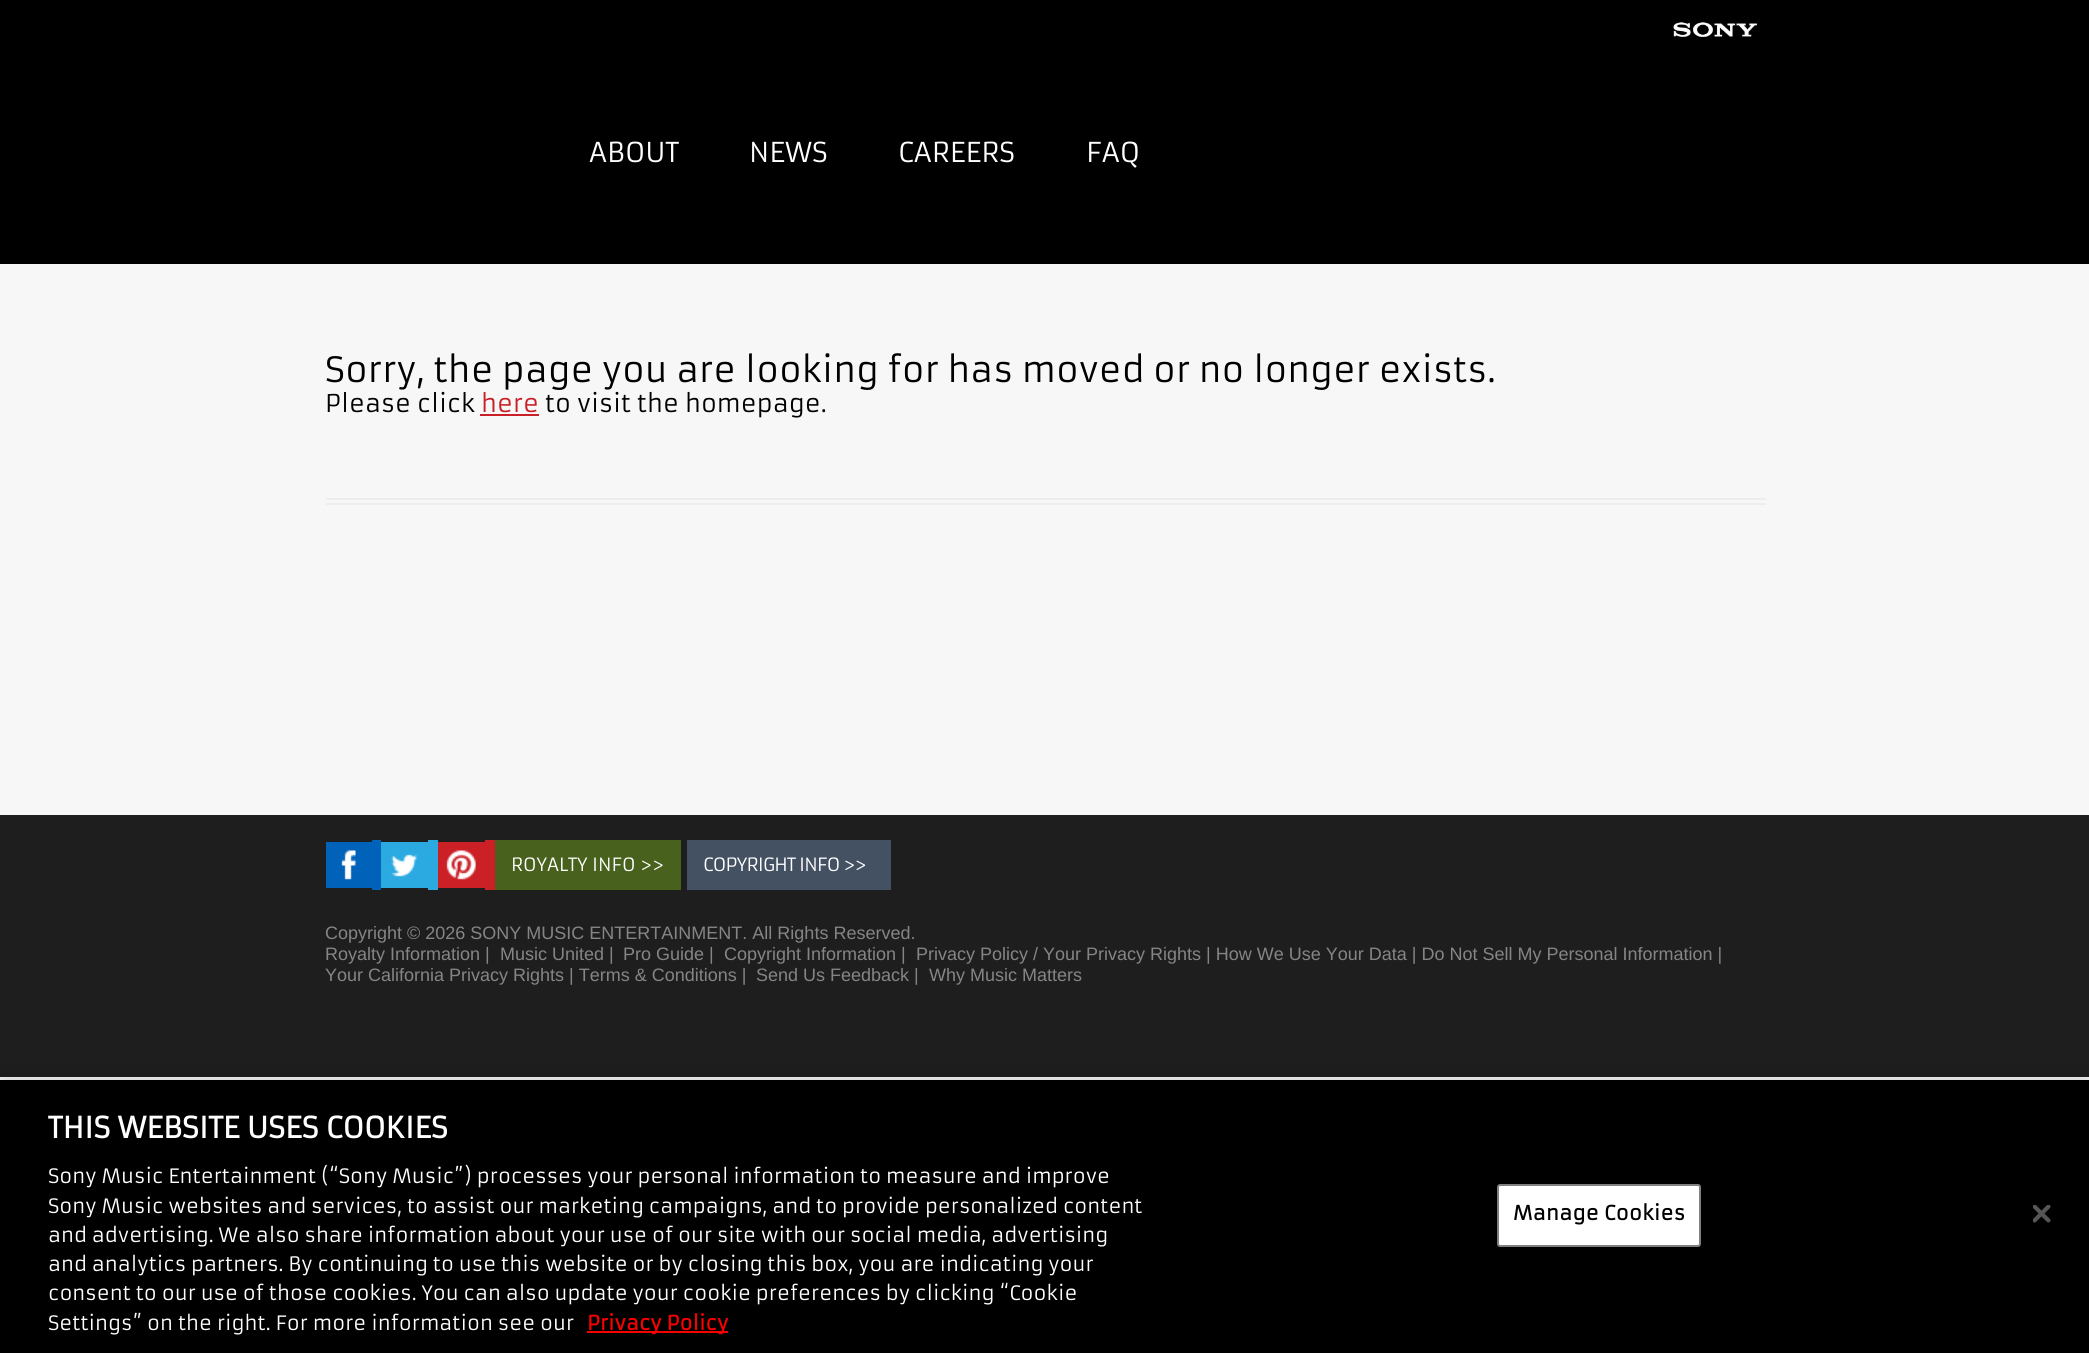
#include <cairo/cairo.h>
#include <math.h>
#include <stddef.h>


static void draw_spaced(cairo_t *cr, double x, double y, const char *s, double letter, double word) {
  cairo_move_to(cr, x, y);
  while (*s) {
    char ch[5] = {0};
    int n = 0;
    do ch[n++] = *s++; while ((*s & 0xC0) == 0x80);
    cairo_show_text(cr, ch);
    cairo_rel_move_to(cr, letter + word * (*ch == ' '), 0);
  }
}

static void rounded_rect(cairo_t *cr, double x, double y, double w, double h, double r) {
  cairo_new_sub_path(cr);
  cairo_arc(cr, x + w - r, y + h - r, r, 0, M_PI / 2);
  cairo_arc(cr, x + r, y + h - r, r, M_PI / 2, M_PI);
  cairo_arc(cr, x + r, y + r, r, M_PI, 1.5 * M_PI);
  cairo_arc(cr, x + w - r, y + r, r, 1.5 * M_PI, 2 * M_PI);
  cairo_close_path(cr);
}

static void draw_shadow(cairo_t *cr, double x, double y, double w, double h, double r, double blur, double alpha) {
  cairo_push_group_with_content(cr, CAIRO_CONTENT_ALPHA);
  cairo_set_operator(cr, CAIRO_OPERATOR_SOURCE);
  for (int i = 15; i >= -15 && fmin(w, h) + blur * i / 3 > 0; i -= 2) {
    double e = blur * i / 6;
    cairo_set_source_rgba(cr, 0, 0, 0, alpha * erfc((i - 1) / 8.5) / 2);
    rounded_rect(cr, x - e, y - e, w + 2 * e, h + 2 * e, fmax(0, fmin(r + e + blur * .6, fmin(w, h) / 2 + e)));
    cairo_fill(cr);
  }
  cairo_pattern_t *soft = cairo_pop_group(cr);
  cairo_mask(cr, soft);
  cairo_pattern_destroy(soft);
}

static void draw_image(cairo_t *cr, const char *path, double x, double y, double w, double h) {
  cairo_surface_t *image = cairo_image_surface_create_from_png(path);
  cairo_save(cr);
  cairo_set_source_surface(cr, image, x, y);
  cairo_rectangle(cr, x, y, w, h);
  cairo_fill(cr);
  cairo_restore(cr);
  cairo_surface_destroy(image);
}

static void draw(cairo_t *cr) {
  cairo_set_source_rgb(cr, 247 / 255.0, 247 / 255.0, 247 / 255.0);
  cairo_paint(cr);
  cairo_set_source_rgb(cr, 0, 0, 0);
  cairo_rectangle(cr, 0, 0, 2089, 264);
  cairo_fill(cr);
  draw_image(cr, "images/1.png", 1672, 22, 86, 15);
  cairo_set_source_rgb(cr, 237 / 255.0, 237 / 255.0, 237 / 255.0);
  cairo_rectangle(cr, 326, 498, 1440, 2);
  cairo_fill(cr);
  cairo_rectangle(cr, 326, 503, 1440, 2);
  cairo_fill(cr);
  cairo_set_source_rgb(cr, 201 / 255.0, 31 / 255.0, 39 / 255.0);
  cairo_rectangle(cr, 480, 414, 59, 2);
  cairo_fill(cr);
  cairo_set_source_rgb(cr, 30 / 255.0, 30 / 255.0, 30 / 255.0);
  cairo_rectangle(cr, 0, 815, 2089, 262);
  cairo_fill(cr);
  cairo_set_source_rgb(cr, 0, 98 / 255.0, 184 / 255.0);
  cairo_rectangle(cr, 326, 842, 46, 46);
  cairo_fill(cr);
  cairo_rectangle(cr, 372, 840, 9, 50);
  cairo_fill(cr);
  cairo_set_source_rgb(cr, 43 / 255.0, 169 / 255.0, 225 / 255.0);
  cairo_rectangle(cr, 381, 842, 47, 46);
  cairo_fill(cr);
  cairo_rectangle(cr, 428, 840, 10, 50);
  cairo_fill(cr);
  cairo_set_source_rgb(cr, 202 / 255.0, 32 / 255.0, 38 / 255.0);
  cairo_rectangle(cr, 438, 842, 47, 46);
  cairo_fill(cr);
  cairo_rectangle(cr, 485, 840, 10, 50);
  cairo_fill(cr);
  draw_image(cr, "images/2.png", 341, 850, 15, 30);
  draw_image(cr, "images/3.png", 391, 854, 27, 23);
  draw_image(cr, "images/4.png", 446, 850, 30, 30);
  cairo_set_source_rgb(cr, 72 / 255.0, 97 / 255.0, 29 / 255.0);
  cairo_rectangle(cr, 495, 840, 186, 50);
  cairo_fill(cr);
  cairo_set_source_rgb(cr, 68 / 255.0, 81 / 255.0, 99 / 255.0);
  cairo_rectangle(cr, 687, 840, 204, 50);
  cairo_fill(cr);
  cairo_set_source_rgb(cr, 0, 0, 0);
  draw_shadow(cr, 0, 1080, 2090, 273, 0, 13.5, 0.2);
  cairo_set_source_rgb(cr, 0, 0, 0);
  cairo_rectangle(cr, 0, 1080, 2089, 273);
  cairo_fill(cr);
  cairo_set_source_rgb(cr, 249 / 255.0, 0, 0);
  cairo_rectangle(cr, 587, 1331, 141, 2);
  cairo_fill(cr);
  cairo_set_source_rgb(cr, 1, 1, 1);
  rounded_rect(cr, 1498, 1185, 202, 61, 2);
  cairo_fill_preserve(cr);
  cairo_set_source_rgb(cr, 128 / 255.0, 128 / 255.0, 128 / 255.0);
  cairo_stroke(cr);
  draw_image(cr, "images/5.png", 2033, 1205, 18, 18);
  cairo_select_font_face(cr, "Armata", CAIRO_FONT_SLANT_NORMAL, CAIRO_FONT_WEIGHT_NORMAL);
  cairo_set_font_size(cr, 27);
  cairo_set_source_rgb(cr, 1, 1, 1);
  cairo_move_to(cr, 589, 162);
  cairo_show_text(cr, "ABOUT");
  cairo_move_to(cr, 749, 162);
  cairo_show_text(cr, "NEWS");
  cairo_move_to(cr, 898, 162);
  cairo_show_text(cr, "CAREERS");
  cairo_move_to(cr, 1086, 162);
  cairo_show_text(cr, "FAQ");
  cairo_set_font_size(cr, 34.3);
  cairo_set_source_rgb(cr, 0, 0, 0);
  cairo_move_to(cr, 325, 382);
  cairo_show_text(cr, "Sorry, the page you are looking for has moved or no longer exists.");
  cairo_set_font_size(cr, 24);
  cairo_move_to(cr, 325, 412);
  cairo_show_text(cr, "Please click");
  cairo_set_source_rgb(cr, 201 / 255.0, 31 / 255.0, 39 / 255.0);
  cairo_move_to(cr, 481, 412);
  cairo_show_text(cr, "here");
  cairo_set_source_rgb(cr, 0, 0, 0);
  cairo_move_to(cr, 545, 412);
  cairo_show_text(cr, "to visit the homepage.");
  cairo_set_font_size(cr, 18);
  cairo_set_source_rgb(cr, 1, 1, 1);
  cairo_move_to(cr, 511, 871);
  cairo_show_text(cr, "ROYALTY INFO >>");
  draw_spaced(cr, 703, 871, "COPYRIGHT INFO >>", -0.75, 0);
  cairo_select_font_face(cr, "Liberation Sans", CAIRO_FONT_SLANT_NORMAL, CAIRO_FONT_WEIGHT_NORMAL);
  cairo_set_source_rgb(cr, 133 / 255.0, 133 / 255.0, 133 / 255.0);
  cairo_move_to(cr, 325, 939);
  cairo_show_text(cr, "Copyright © 2026 SONY MUSIC ENTERTAINMENT. All Rights Reserved.");
  cairo_move_to(cr, 325, 960);
  cairo_show_text(cr, "Royalty Information |");
  cairo_move_to(cr, 500, 960);
  cairo_show_text(cr, "Music United |");
  cairo_move_to(cr, 623, 960);
  cairo_show_text(cr, "Pro Guide |");
  cairo_move_to(cr, 724, 960);
  cairo_show_text(cr, "Copyright Information |");
  cairo_move_to(cr, 916, 960);
  cairo_show_text(cr, "Privacy Policy / Your Privacy Rights | How We Use Your Data | Do Not Sell My Personal Information |");
  cairo_move_to(cr, 325, 981);
  cairo_show_text(cr, "Your California Privacy Rights | Terms & Conditions |");
  cairo_move_to(cr, 756, 981);
  cairo_show_text(cr, "Send Us Feedback |");
  cairo_move_to(cr, 929, 981);
  cairo_show_text(cr, "Why Music Matters");
  cairo_select_font_face(cr, "Armata", CAIRO_FONT_SLANT_NORMAL, CAIRO_FONT_WEIGHT_BOLD);
  cairo_set_font_size(cr, 28.75);
  cairo_set_source_rgb(cr, 1, 1, 1);
  cairo_move_to(cr, 48, 1138);
  cairo_show_text(cr, "THIS WEBSITE USES COOKIES");
  cairo_select_font_face(cr, "Armata", CAIRO_FONT_SLANT_NORMAL, CAIRO_FONT_WEIGHT_NORMAL);
  cairo_set_font_size(cr, 19.5);
  cairo_move_to(cr, 48, 1183);
  cairo_show_text(cr, "Sony Music Entertainment (“Sony Music”) processes your personal information to measure and improve");
  cairo_move_to(cr, 48, 1213);
  cairo_show_text(cr, "Sony Music websites and services, to assist our marketing campaigns, and to provide personalized content");
  cairo_move_to(cr, 48, 1242);
  cairo_show_text(cr, "and advertising. We also share information about your use of our site with our social media, advertising");
  cairo_move_to(cr, 48, 1271);
  cairo_show_text(cr, "and analytics partners. By continuing to use this website or by closing this box, you are indicating your");
  cairo_move_to(cr, 48, 1300);
  cairo_show_text(cr, "consent to our use of those cookies. You can also update your cookie preferences by clicking “Cookie");
  cairo_move_to(cr, 48, 1330);
  cairo_show_text(cr, "Settings” on the right. For more information see our");
  cairo_select_font_face(cr, "Armata", CAIRO_FONT_SLANT_NORMAL, CAIRO_FONT_WEIGHT_BOLD);
  cairo_set_source_rgb(cr, 249 / 255.0, 0, 0);
  cairo_move_to(cr, 587, 1330);
  cairo_show_text(cr, "Privacy Policy");
  cairo_set_source_rgb(cr, 0, 0, 0);
  draw_spaced(cr, 1513, 1220, "Manage Cookies", 0.25, 0);
}

int main(void) {
  cairo_surface_t *surface = cairo_image_surface_create(CAIRO_FORMAT_RGB24, 2089, 1353);
  cairo_t *cr = cairo_create(surface);
  cairo_font_options_t *options = cairo_font_options_create();
  cairo_font_options_set_hint_metrics(options, CAIRO_HINT_METRICS_OFF);
  cairo_font_options_set_hint_style(options, CAIRO_HINT_STYLE_NONE);
  cairo_set_font_options(cr, options);
  cairo_set_miter_limit(cr, 4);
  draw(cr);
  cairo_surface_write_to_png(surface, "out.png");
  cairo_font_options_destroy(options);
  cairo_destroy(cr);
  cairo_surface_destroy(surface);
  return 0;
}
